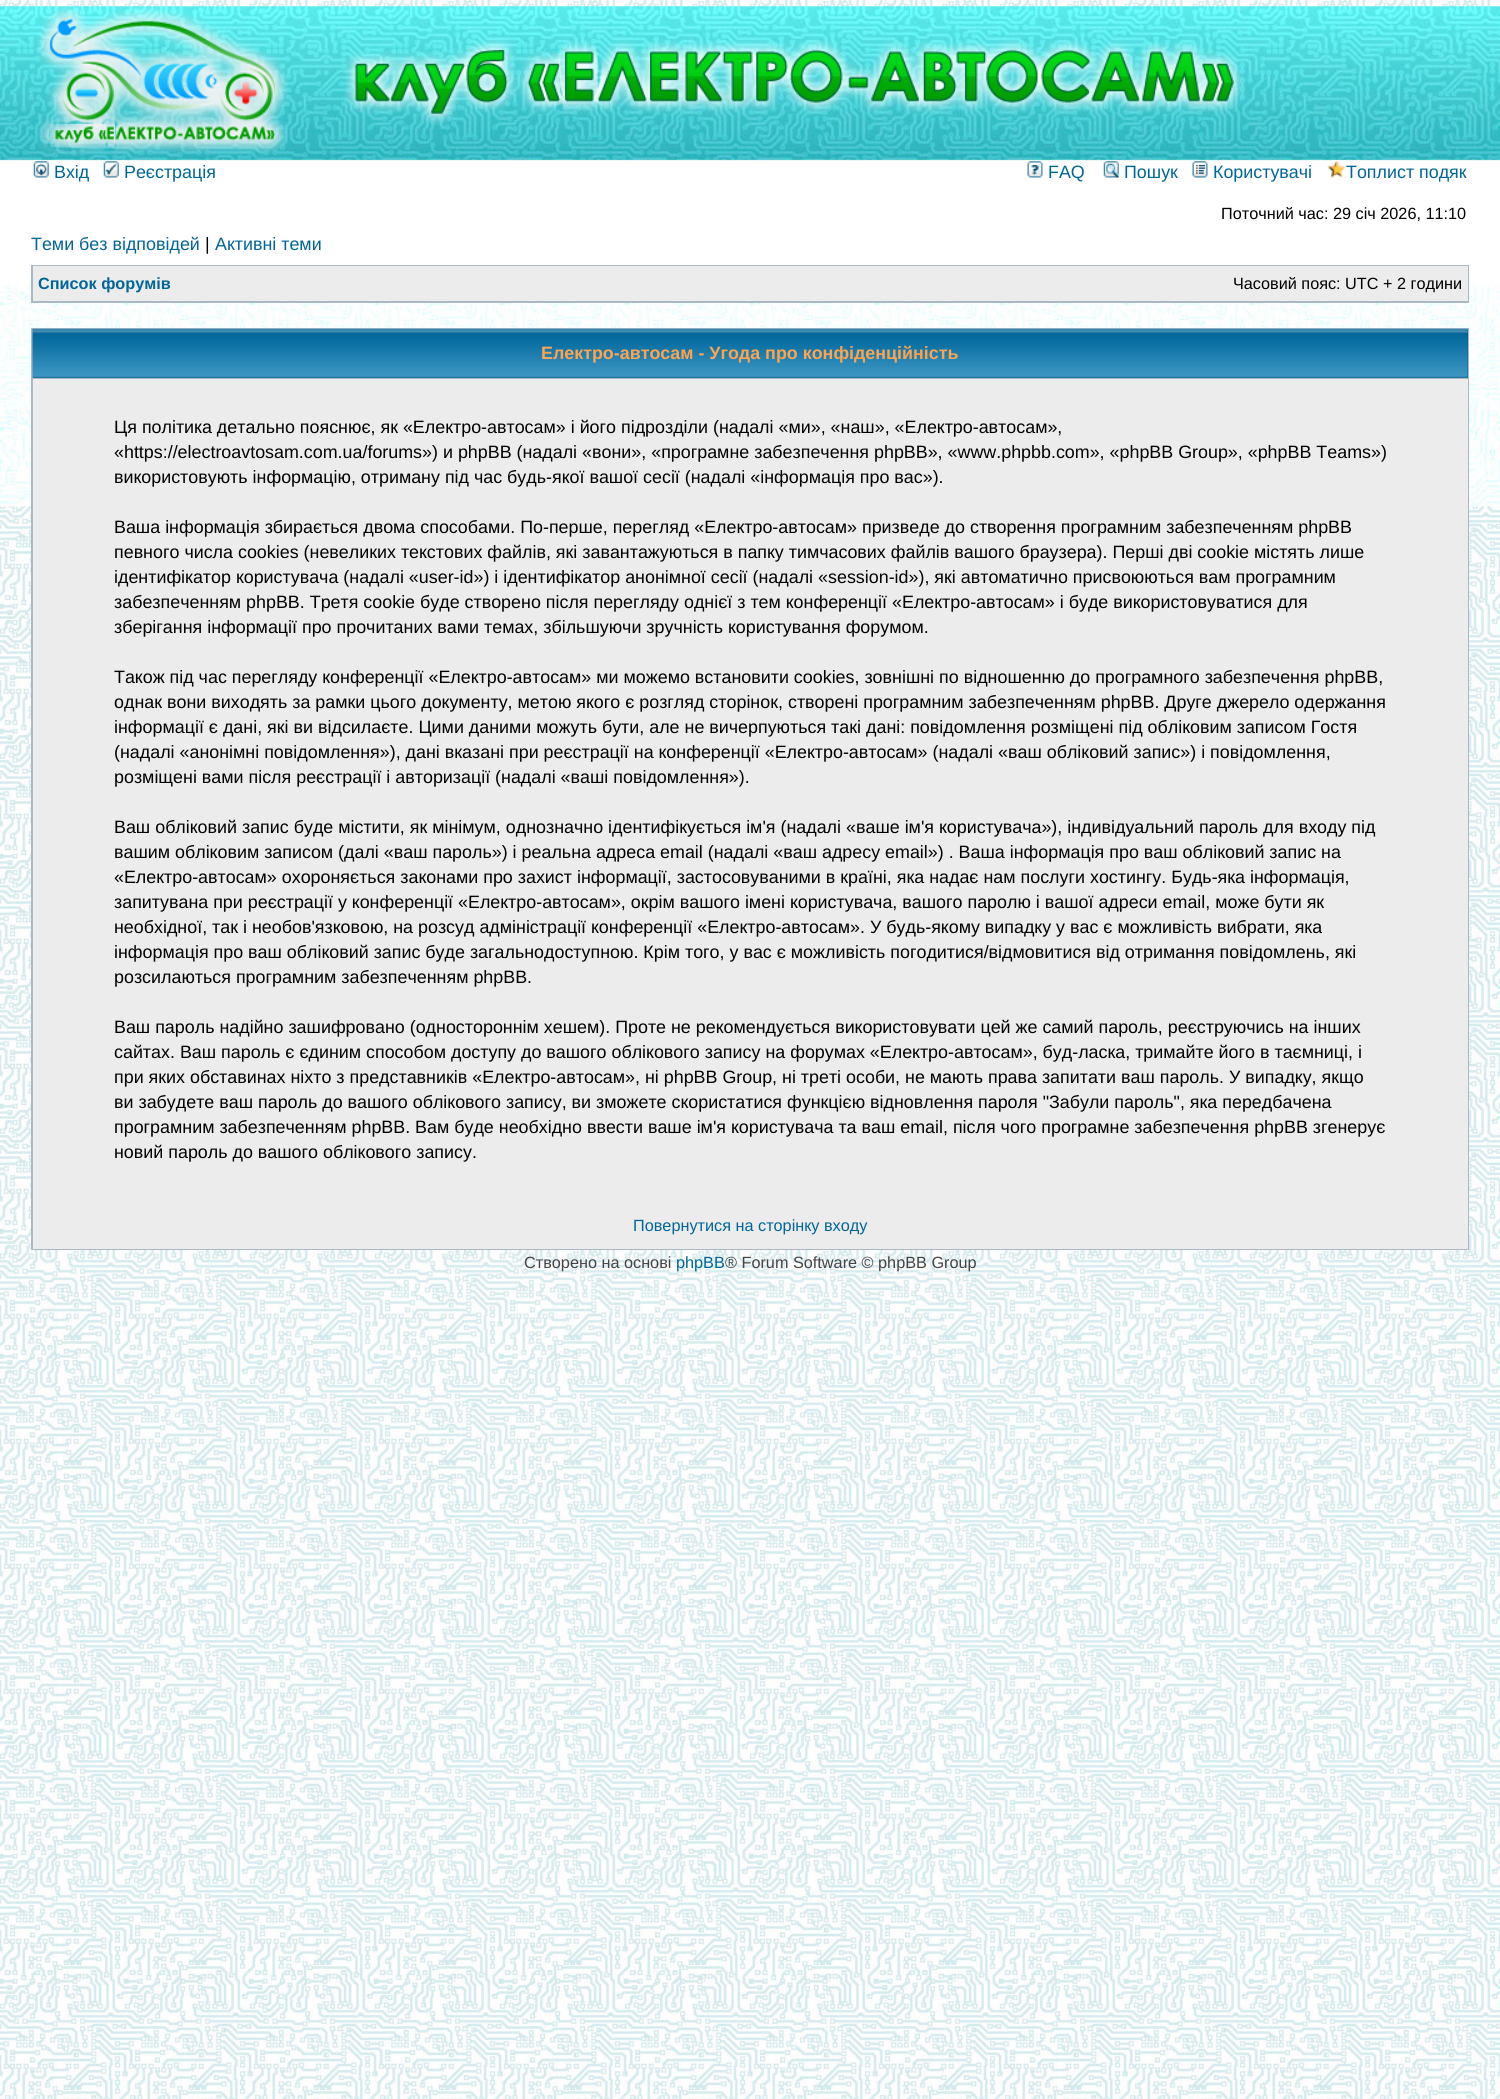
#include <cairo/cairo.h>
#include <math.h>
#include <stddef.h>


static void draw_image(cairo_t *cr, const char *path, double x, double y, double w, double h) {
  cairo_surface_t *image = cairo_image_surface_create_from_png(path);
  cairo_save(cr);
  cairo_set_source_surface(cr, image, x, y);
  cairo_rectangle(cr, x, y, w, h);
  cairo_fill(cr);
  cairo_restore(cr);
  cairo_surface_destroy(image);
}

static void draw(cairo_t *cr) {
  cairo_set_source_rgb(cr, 1, 1, 1);
  cairo_paint(cr);
  draw_image(cr, "images/1.png", 0, 0, 1500, 2099);
  draw_image(cr, "images/2.png", 0, 6, 1500, 501);
  draw_image(cr, "images/3.png", 343, 38, 902, 88);
  draw_image(cr, "images/4.png", 37, 6, 251, 150);
  draw_image(cr, "images/5.png", 33, 161, 16, 17);
  draw_image(cr, "images/6.png", 103, 161, 16, 17);
  draw_image(cr, "images/7.png", 1027, 161, 16, 17);
  draw_image(cr, "images/8.png", 1103, 161, 16, 17);
  draw_image(cr, "images/9.png", 1192, 161, 16, 17);
  draw_image(cr, "images/10.png", 1327, 160, 20, 18);
  cairo_set_source_rgb(cr, 169 / 255.0, 184 / 255.0, 194 / 255.0);
  cairo_rectangle(cr, 31, 265, 1438, 38);
  cairo_fill(cr);
  cairo_set_source_rgb(cr, 236 / 255.0, 236 / 255.0, 236 / 255.0);
  cairo_rectangle(cr, 33, 266, 1435, 35);
  cairo_fill(cr);
  cairo_set_source_rgb(cr, 169 / 255.0, 184 / 255.0, 194 / 255.0);
  cairo_rectangle(cr, 31, 328, 1438, 922);
  cairo_fill(cr);
  cairo_set_source_rgb(cr, 0, 102 / 255.0, 153 / 255.0);
  cairo_rectangle(cr, 33, 329, 1435, 49);
  cairo_fill(cr);
  draw_image(cr, "images/11.png", 32, 328, 1436, 50);
  cairo_set_source_rgb(cr, 236 / 255.0, 236 / 255.0, 236 / 255.0);
  cairo_rectangle(cr, 33, 379, 1435, 870);
  cairo_fill(cr);
  cairo_select_font_face(cr, "Liberation Sans", CAIRO_FONT_SLANT_NORMAL, CAIRO_FONT_WEIGHT_NORMAL);
  cairo_set_font_size(cr, 17.88);
  cairo_set_source_rgb(cr, 0, 101 / 255.0, 151 / 255.0);
  cairo_move_to(cr, 54, 178);
  cairo_show_text(cr, "Вхід");
  cairo_move_to(cr, 124, 178);
  cairo_show_text(cr, "Реєстрація");
  cairo_move_to(cr, 1048, 178);
  cairo_show_text(cr, "FAQ");
  cairo_move_to(cr, 1124, 178);
  cairo_show_text(cr, "Пошук");
  cairo_move_to(cr, 1213, 178);
  cairo_show_text(cr, "Користувачі");
  cairo_move_to(cr, 1346, 178);
  cairo_show_text(cr, "Топлист подяк");
  cairo_set_font_size(cr, 16.25);
  cairo_set_source_rgb(cr, 0, 0, 0);
  cairo_move_to(cr, 1221, 219);
  cairo_show_text(cr, "Поточний час: 29 січ 2026, 11:10");
  cairo_set_font_size(cr, 17.88);
  cairo_set_source_rgb(cr, 0, 101 / 255.0, 151 / 255.0);
  cairo_move_to(cr, 31, 250);
  cairo_show_text(cr, "Теми без відповідей");
  cairo_set_source_rgb(cr, 0, 0, 0);
  cairo_move_to(cr, 205, 250);
  cairo_show_text(cr, "|");
  cairo_set_source_rgb(cr, 0, 101 / 255.0, 151 / 255.0);
  cairo_move_to(cr, 215, 250);
  cairo_show_text(cr, "Активні теми");
  cairo_select_font_face(cr, "Liberation Sans", CAIRO_FONT_SLANT_NORMAL, CAIRO_FONT_WEIGHT_BOLD);
  cairo_set_font_size(cr, 16.25);
  cairo_move_to(cr, 38, 289);
  cairo_show_text(cr, "Список форумів");
  cairo_select_font_face(cr, "Liberation Sans", CAIRO_FONT_SLANT_NORMAL, CAIRO_FONT_WEIGHT_NORMAL);
  cairo_set_source_rgb(cr, 0, 0, 0);
  cairo_move_to(cr, 1233, 289);
  cairo_show_text(cr, "Часовий пояс: UTC + 2 години");
  cairo_select_font_face(cr, "Liberation Sans", CAIRO_FONT_SLANT_NORMAL, CAIRO_FONT_WEIGHT_BOLD);
  cairo_set_font_size(cr, 17.88);
  cairo_set_source_rgb(cr, 1, 163 / 255.0, 79 / 255.0);
  cairo_move_to(cr, 541, 359);
  cairo_show_text(cr, "Електро-автосам - Угода про конфіденційність");
  cairo_select_font_face(cr, "Liberation Sans", CAIRO_FONT_SLANT_NORMAL, CAIRO_FONT_WEIGHT_NORMAL);
  cairo_set_source_rgb(cr, 0, 0, 0);
  cairo_move_to(cr, 114, 433);
  cairo_show_text(cr, "Ця політика детально пояснює, як «Електро-автосам» і його підрозділи (надалі «ми», «наш», «Електро-автосам»,");
  cairo_move_to(cr, 114, 458);
  cairo_show_text(cr, "«https://electroavtosam.com.ua/forums») и phpBB (надалі «вони», «програмне забезпечення phpBB», «www.phpbb.com», «phpBB Group», «phpBB Teams»)");
  cairo_move_to(cr, 114, 483);
  cairo_show_text(cr, "використовують інформацію, отриману під час будь-якої вашої сесії (надалі «інформація про вас»).");
  cairo_move_to(cr, 114, 533);
  cairo_show_text(cr, "Ваша інформація збирається двома способами. По-перше, перегляд «Електро-автосам» призведе до створення програмним забезпеченням phpBB");
  cairo_move_to(cr, 114, 558);
  cairo_show_text(cr, "певного числа cookies (невеликих текстових файлів, які завантажуються в папку тимчасових файлів вашого браузера). Перші дві cookie містять лише");
  cairo_move_to(cr, 114, 583);
  cairo_show_text(cr, "ідентифікатор користувача (надалі «user-id») і ідентифікатор анонімної сесії (надалі «session-id»), які автоматично присвоюються вам програмним");
  cairo_move_to(cr, 114, 608);
  cairo_show_text(cr, "забезпеченням phpBB. Третя cookie буде створено після перегляду однієї з тем конференції «Електро-автосам» і буде використовуватися для");
  cairo_move_to(cr, 114, 633);
  cairo_show_text(cr, "зберігання інформації про прочитаних вами темах, збільшуючи зручність користування форумом.");
  cairo_move_to(cr, 114, 683);
  cairo_show_text(cr, "Також під час перегляду конференції «Електро-автосам» ми можемо встановити cookies, зовнішні по відношенню до програмного забезпечення phpBB,");
  cairo_move_to(cr, 114, 708);
  cairo_show_text(cr, "однак вони виходять за рамки цього документу, метою якого є розгляд сторінок, створені програмним забезпеченням phpBB. Друге джерело одержання");
  cairo_move_to(cr, 114, 733);
  cairo_show_text(cr, "інформації є дані, які ви відсилаєте. Цими даними можуть бути, але не вичерпуються такі дані: повідомлення розміщені під обліковим записом Гостя");
  cairo_move_to(cr, 114, 758);
  cairo_show_text(cr, "(надалі «анонімні повідомлення»), дані вказані при реєстрації на конференції «Електро-автосам» (надалі «ваш обліковий запис») і повідомлення,");
  cairo_move_to(cr, 114, 783);
  cairo_show_text(cr, "розміщені вами після реєстрації і авторизації (надалі «ваші повідомлення»).");
  cairo_move_to(cr, 114, 833);
  cairo_show_text(cr, "Ваш обліковий запис буде містити, як мінімум, однозначно ідентифікується ім'я (надалі «ваше ім'я користувача»), індивідуальний пароль для входу під");
  cairo_move_to(cr, 114, 858);
  cairo_show_text(cr, "вашим обліковим записом (далі «ваш пароль») і реальна адреса email (надалі «ваш адресу email») . Ваша інформація про ваш обліковий запис на");
  cairo_move_to(cr, 114, 883);
  cairo_show_text(cr, "«Електро-автосам» охороняється законами про захист інформації, застосовуваними в країні, яка надає нам послуги хостингу. Будь-яка інформація,");
  cairo_move_to(cr, 114, 908);
  cairo_show_text(cr, "запитувана при реєстрації у конференції «Електро-автосам», окрім вашого імені користувача, вашого паролю і вашої адреси email, може бути як");
  cairo_move_to(cr, 114, 933);
  cairo_show_text(cr, "необхідної, так і необов'язковою, на розсуд адміністрації конференції «Електро-автосам». У будь-якому випадку у вас є можливість вибрати, яка");
  cairo_move_to(cr, 114, 958);
  cairo_show_text(cr, "інформація про ваш обліковий запис буде загальнодоступною. Крім того, у вас є можливість погодитися/відмовитися від отримання повідомлень, які");
  cairo_move_to(cr, 114, 983);
  cairo_show_text(cr, "розсилаються програмним забезпеченням phpBB.");
  cairo_move_to(cr, 114, 1033);
  cairo_show_text(cr, "Ваш пароль надійно зашифровано (одностороннім хешем). Проте не рекомендується використовувати цей же самий пароль, реєструючись на інших");
  cairo_move_to(cr, 114, 1058);
  cairo_show_text(cr, "сайтах. Ваш пароль є єдиним способом доступу до вашого облікового запису на форумах «Електро-автосам», буд-ласка, тримайте його в таємниці, і");
  cairo_move_to(cr, 114, 1083);
  cairo_show_text(cr, "при яких обставинах ніхто з представників «Електро-автосам», ні phpBB Group, ні треті особи, не мають права запитати ваш пароль. У випадку, якщо");
  cairo_move_to(cr, 114, 1108);
  cairo_show_text(cr, "ви забудете ваш пароль до вашого облікового запису, ви зможете скористатися функцією відновлення пароля \"Забули пароль\", яка передбачена");
  cairo_move_to(cr, 114, 1133);
  cairo_show_text(cr, "програмним забезпеченням phpBB. Вам буде необхідно ввести ваше ім'я користувача та ваш email, після чого програмне забезпечення phpBB згенерує");
  cairo_move_to(cr, 114, 1158);
  cairo_show_text(cr, "новий пароль до вашого облікового запису.");
  cairo_set_font_size(cr, 16.25);
  cairo_set_source_rgb(cr, 0, 101 / 255.0, 151 / 255.0);
  cairo_move_to(cr, 633, 1231);
  cairo_show_text(cr, "Повернутися на сторінку входу");
  cairo_set_source_rgb(cr, 68 / 255.0, 68 / 255.0, 68 / 255.0);
  cairo_move_to(cr, 524, 1268);
  cairo_show_text(cr, "Створено на основі");
  cairo_set_source_rgb(cr, 0, 101 / 255.0, 151 / 255.0);
  cairo_move_to(cr, 676, 1268);
  cairo_show_text(cr, "phpBB");
  cairo_set_source_rgb(cr, 68 / 255.0, 68 / 255.0, 68 / 255.0);
  cairo_move_to(cr, 725, 1268);
  cairo_show_text(cr, "® Forum Software © phpBB Group");
}

int main(void) {
  cairo_surface_t *surface = cairo_image_surface_create(CAIRO_FORMAT_RGB24, 1500, 2099);
  cairo_t *cr = cairo_create(surface);
  cairo_font_options_t *options = cairo_font_options_create();
  cairo_font_options_set_hint_metrics(options, CAIRO_HINT_METRICS_OFF);
  cairo_font_options_set_hint_style(options, CAIRO_HINT_STYLE_NONE);
  cairo_set_font_options(cr, options);
  cairo_set_miter_limit(cr, 4);
  draw(cr);
  cairo_surface_write_to_png(surface, "out.png");
  cairo_font_options_destroy(options);
  cairo_destroy(cr);
  cairo_surface_destroy(surface);
  return 0;
}
